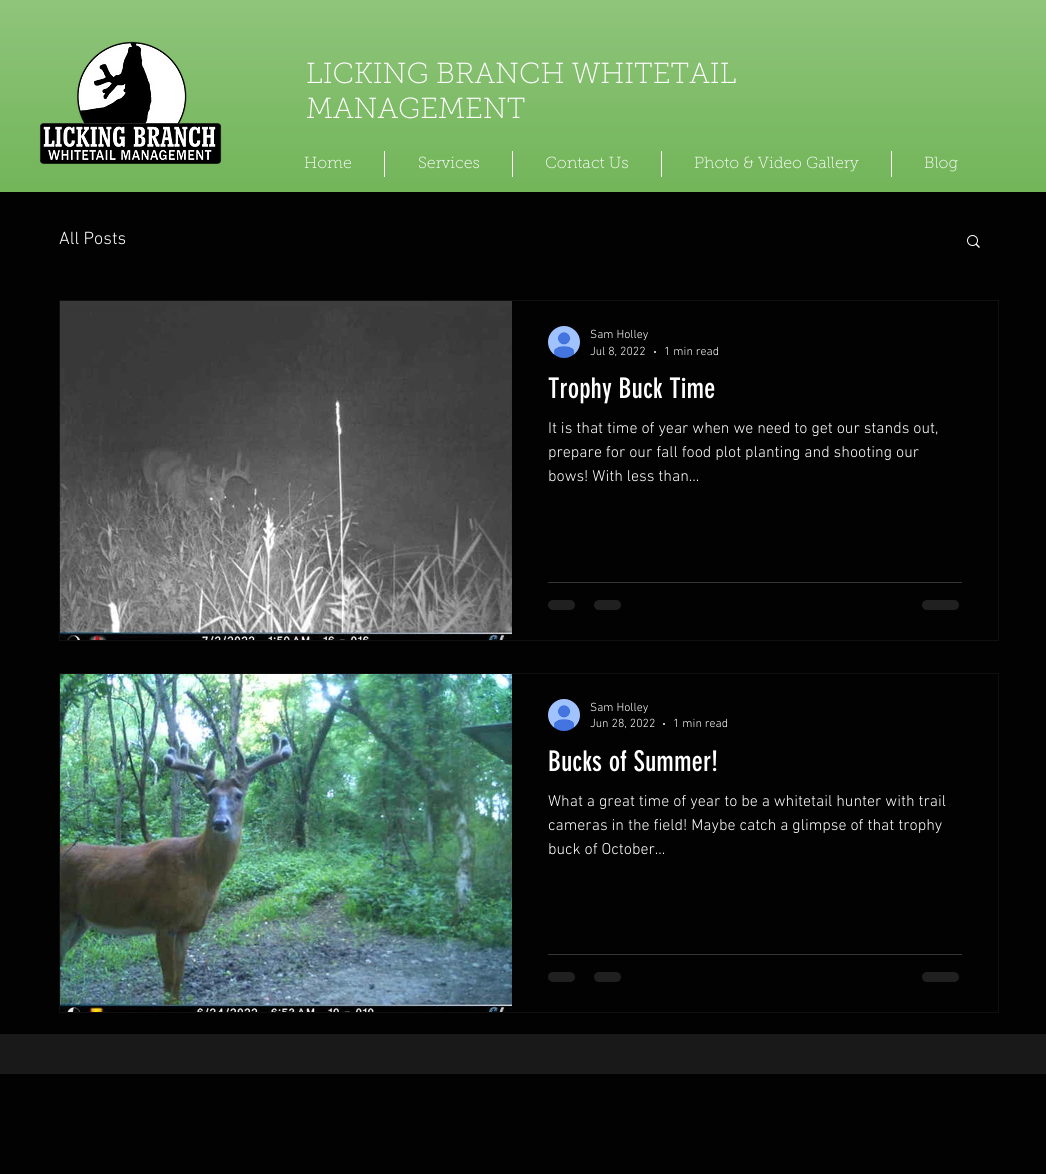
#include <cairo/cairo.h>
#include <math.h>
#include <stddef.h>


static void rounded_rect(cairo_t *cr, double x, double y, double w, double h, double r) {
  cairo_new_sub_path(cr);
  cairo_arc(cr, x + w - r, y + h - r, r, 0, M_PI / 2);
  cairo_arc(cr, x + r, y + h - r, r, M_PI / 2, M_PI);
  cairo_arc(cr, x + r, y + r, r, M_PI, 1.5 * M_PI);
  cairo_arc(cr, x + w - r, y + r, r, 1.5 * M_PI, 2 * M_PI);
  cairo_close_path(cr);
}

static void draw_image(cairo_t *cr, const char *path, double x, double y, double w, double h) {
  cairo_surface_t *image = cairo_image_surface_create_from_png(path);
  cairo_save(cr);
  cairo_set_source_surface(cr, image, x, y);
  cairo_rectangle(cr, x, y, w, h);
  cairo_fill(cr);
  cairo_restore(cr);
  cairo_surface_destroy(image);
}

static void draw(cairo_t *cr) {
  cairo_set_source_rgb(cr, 2 / 255.0, 2 / 255.0, 2 / 255.0);
  cairo_paint(cr);
  cairo_set_source_rgb(cr, 104 / 255.0, 176 / 255.0, 77 / 255.0);
  cairo_rectangle(cr, 0, 0, 1046, 192);
  cairo_fill(cr);
  draw_image(cr, "images/1.png", 0, 0, 1046, 192);
  draw_image(cr, "images/2.png", 39, 41, 183, 123);
  cairo_set_source_rgb(cr, 1, 1, 1);
  cairo_rectangle(cr, 384, 151, 1, 26);
  cairo_fill(cr);
  cairo_rectangle(cr, 512, 151, 1, 26);
  cairo_fill(cr);
  cairo_rectangle(cr, 661, 151, 1, 26);
  cairo_fill(cr);
  cairo_rectangle(cr, 891, 151, 1, 26);
  cairo_fill(cr);
  draw_image(cr, "images/3.png", 967, 235, 13, 13);
  cairo_rectangle(cr, 59.5, 300.5, 939, 340);
  cairo_set_source_rgb(cr, 16 / 255.0, 16 / 255.0, 16 / 255.0);
  cairo_set_line_width(cr, 1);
  cairo_stroke(cr);
  draw_image(cr, "images/4.png", 60, 301, 452, 6);
  draw_image(cr, "images/5.png", 60, 307, 452, 333);
  draw_image(cr, "images/6.png", 548, 326, 32, 32);
  cairo_set_source_rgb(cr, 1, 1, 1);
  cairo_arc(cr, 655, 352, 1, 0, 2 * M_PI);
  cairo_fill(cr);
  cairo_set_source_rgb(cr, 53 / 255.0, 53 / 255.0, 53 / 255.0);
  cairo_rectangle(cr, 548, 582, 414, 1);
  cairo_fill(cr);
  cairo_set_source_rgb(cr, 32 / 255.0, 32 / 255.0, 32 / 255.0);
  rounded_rect(cr, 548, 600, 27, 10, 5);
  cairo_fill(cr);
  rounded_rect(cr, 594, 600, 27, 10, 5);
  cairo_fill(cr);
  rounded_rect(cr, 922, 600, 37, 10, 5);
  cairo_fill(cr);
  cairo_rectangle(cr, 59.5, 673.5, 939, 339);
  cairo_set_source_rgb(cr, 16 / 255.0, 16 / 255.0, 16 / 255.0);
  cairo_stroke(cr);
  draw_image(cr, "images/7.png", 60, 674, 452, 338);
  draw_image(cr, "images/6.png", 548, 699, 32, 32);
  cairo_set_source_rgb(cr, 1, 1, 1);
  cairo_arc(cr, 664, 724, 1, 0, 2 * M_PI);
  cairo_fill(cr);
  cairo_set_source_rgb(cr, 53 / 255.0, 53 / 255.0, 53 / 255.0);
  cairo_rectangle(cr, 548, 954, 414, 1);
  cairo_fill(cr);
  cairo_set_source_rgb(cr, 32 / 255.0, 32 / 255.0, 32 / 255.0);
  rounded_rect(cr, 548, 972, 27, 10, 5);
  cairo_fill(cr);
  rounded_rect(cr, 594, 972, 27, 10, 5);
  cairo_fill(cr);
  rounded_rect(cr, 922, 972, 37, 10, 5);
  cairo_fill(cr);
  cairo_set_source_rgb(cr, 26 / 255.0, 25 / 255.0, 25 / 255.0);
  cairo_rectangle(cr, 0, 1034, 1046, 40);
  cairo_fill(cr);
  cairo_select_font_face(cr, "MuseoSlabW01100 Thin", CAIRO_FONT_SLANT_NORMAL, CAIRO_FONT_WEIGHT_NORMAL);
  cairo_set_font_size(cr, 29);
  cairo_set_source_rgb(cr, 1, 1, 1);
  cairo_move_to(cr, 306, 83);
  cairo_show_text(cr, "LICKING BRANCH WHITETAIL");
  cairo_move_to(cr, 306, 118);
  cairo_show_text(cr, "MANAGEMENT");
  cairo_set_font_size(cr, 16);
  cairo_move_to(cr, 304, 168);
  cairo_show_text(cr, "Home");
  cairo_move_to(cr, 418, 168);
  cairo_show_text(cr, "Services");
  cairo_move_to(cr, 545, 168);
  cairo_show_text(cr, "Contact Us");
  cairo_move_to(cr, 694, 168);
  cairo_show_text(cr, "Photo & Video Gallery");
  cairo_move_to(cr, 924, 168);
  cairo_show_text(cr, "Blog");
  cairo_select_font_face(cr, "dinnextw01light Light", CAIRO_FONT_SLANT_NORMAL, CAIRO_FONT_WEIGHT_NORMAL);
  cairo_set_font_size(cr, 18);
  cairo_move_to(cr, 59, 244);
  cairo_show_text(cr, "All Posts");
  cairo_set_font_size(cr, 12);
  cairo_move_to(cr, 590, 338);
  cairo_show_text(cr, "Sam Holley");
  cairo_move_to(cr, 590, 355);
  cairo_show_text(cr, "Jul 8, 2022");
  cairo_move_to(cr, 664, 355);
  cairo_show_text(cr, "1 min read");
  cairo_select_font_face(cr, "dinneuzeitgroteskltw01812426", CAIRO_FONT_SLANT_NORMAL, CAIRO_FONT_WEIGHT_NORMAL);
  cairo_set_font_size(cr, 28);
  cairo_move_to(cr, 548, 398);
  cairo_show_text(cr, "Trophy Buck Time");
  cairo_select_font_face(cr, "dinnextw01light Light", CAIRO_FONT_SLANT_NORMAL, CAIRO_FONT_WEIGHT_NORMAL);
  cairo_set_font_size(cr, 16);
  cairo_move_to(cr, 548, 433);
  cairo_show_text(cr, "It is that time of year when we need to get our stands out,");
  cairo_move_to(cr, 548, 457);
  cairo_show_text(cr, "prepare for our fall food plot planting and shooting our");
  cairo_move_to(cr, 548, 481);
  cairo_show_text(cr, "bows! With less than...");
  cairo_set_font_size(cr, 12);
  cairo_move_to(cr, 590, 711);
  cairo_show_text(cr, "Sam Holley");
  cairo_move_to(cr, 590, 727);
  cairo_show_text(cr, "Jun 28, 2022");
  cairo_move_to(cr, 673, 727);
  cairo_show_text(cr, "1 min read");
  cairo_select_font_face(cr, "dinneuzeitgroteskltw01812426", CAIRO_FONT_SLANT_NORMAL, CAIRO_FONT_WEIGHT_NORMAL);
  cairo_set_font_size(cr, 28);
  cairo_move_to(cr, 548, 771);
  cairo_show_text(cr, "Bucks of Summer!");
  cairo_select_font_face(cr, "dinnextw01light Light", CAIRO_FONT_SLANT_NORMAL, CAIRO_FONT_WEIGHT_NORMAL);
  cairo_set_font_size(cr, 16);
  cairo_move_to(cr, 548, 806);
  cairo_show_text(cr, "What a great time of year to be a whitetail hunter with trail");
  cairo_move_to(cr, 548, 830);
  cairo_show_text(cr, "cameras in the field! Maybe catch a glimpse of that trophy");
  cairo_move_to(cr, 548, 854);
  cairo_show_text(cr, "buck of October...");
}

int main(void) {
  cairo_surface_t *surface = cairo_image_surface_create(CAIRO_FORMAT_RGB24, 1046, 1174);
  cairo_t *cr = cairo_create(surface);
  cairo_font_options_t *options = cairo_font_options_create();
  cairo_font_options_set_hint_metrics(options, CAIRO_HINT_METRICS_OFF);
  cairo_font_options_set_hint_style(options, CAIRO_HINT_STYLE_NONE);
  cairo_set_font_options(cr, options);
  cairo_set_miter_limit(cr, 4);
  draw(cr);
  cairo_surface_write_to_png(surface, "out.png");
  cairo_font_options_destroy(options);
  cairo_destroy(cr);
  cairo_surface_destroy(surface);
  return 0;
}
